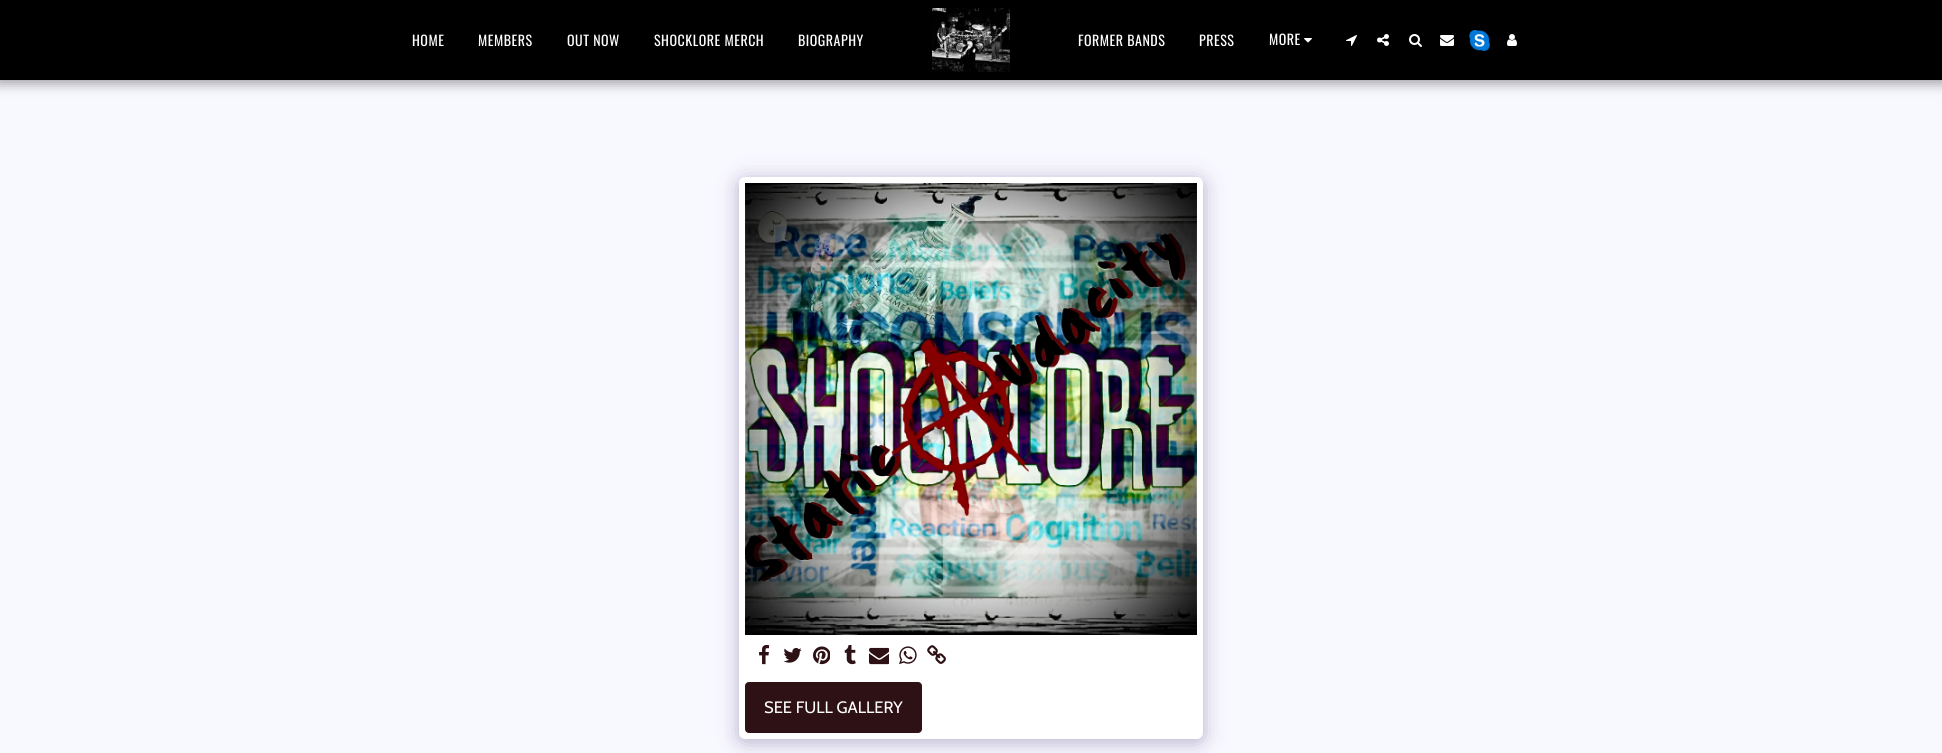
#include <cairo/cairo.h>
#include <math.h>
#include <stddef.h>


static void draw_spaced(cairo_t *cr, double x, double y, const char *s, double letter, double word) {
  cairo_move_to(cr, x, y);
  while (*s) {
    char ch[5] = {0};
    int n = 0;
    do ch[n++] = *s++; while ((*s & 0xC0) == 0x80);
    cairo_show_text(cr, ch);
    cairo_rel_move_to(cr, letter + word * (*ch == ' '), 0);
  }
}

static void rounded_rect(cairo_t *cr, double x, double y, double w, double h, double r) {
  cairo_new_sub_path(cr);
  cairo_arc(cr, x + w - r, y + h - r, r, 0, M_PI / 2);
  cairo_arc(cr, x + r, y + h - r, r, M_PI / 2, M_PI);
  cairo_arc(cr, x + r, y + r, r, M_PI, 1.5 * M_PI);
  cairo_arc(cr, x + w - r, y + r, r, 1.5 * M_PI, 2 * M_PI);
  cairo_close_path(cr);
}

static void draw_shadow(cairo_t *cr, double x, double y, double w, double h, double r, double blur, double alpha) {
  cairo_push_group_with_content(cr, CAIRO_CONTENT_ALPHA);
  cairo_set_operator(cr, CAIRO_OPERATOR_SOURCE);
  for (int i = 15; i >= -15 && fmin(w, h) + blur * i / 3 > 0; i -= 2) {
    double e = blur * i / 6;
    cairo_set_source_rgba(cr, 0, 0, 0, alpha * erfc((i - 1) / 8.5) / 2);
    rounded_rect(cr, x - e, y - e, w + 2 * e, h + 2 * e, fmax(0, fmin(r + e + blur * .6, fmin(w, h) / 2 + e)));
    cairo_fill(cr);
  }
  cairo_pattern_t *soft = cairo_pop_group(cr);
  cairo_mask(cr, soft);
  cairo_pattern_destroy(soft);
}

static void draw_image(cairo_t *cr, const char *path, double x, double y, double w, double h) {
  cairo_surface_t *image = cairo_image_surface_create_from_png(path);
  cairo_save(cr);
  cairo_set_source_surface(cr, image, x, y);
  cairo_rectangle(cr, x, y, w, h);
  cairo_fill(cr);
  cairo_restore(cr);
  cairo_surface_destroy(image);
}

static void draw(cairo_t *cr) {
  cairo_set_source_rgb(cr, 248 / 255.0, 248 / 255.0, 1);
  cairo_paint(cr);
  cairo_set_source_rgb(cr, 0, 0, 0);
  draw_shadow(cr, -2, 0, 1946, 84, 0, 6, 0.35);
  cairo_set_source_rgb(cr, 0, 0, 0);
  cairo_rectangle(cr, 0, 0, 1942, 80);
  cairo_fill(cr);
  draw_image(cr, "images/1.png", 932, 8, 78, 64);
  draw_image(cr, "images/2.png", 1304, 38, 8, 5);
  draw_image(cr, "images/3.png", 1346, 35, 11, 11);
  draw_image(cr, "images/4.png", 1377, 34, 12, 12);
  draw_image(cr, "images/5.png", 1409, 34, 13, 13);
  draw_image(cr, "images/6.png", 1440, 35, 14, 11);
  draw_image(cr, "images/7.png", 1469, 30, 21, 21);
  draw_image(cr, "images/8.png", 1507, 34, 10, 12);
  cairo_set_source_rgb(cr, 77 / 255.0, 63 / 255.0, 122 / 255.0);
  draw_shadow(cr, 739, 180, 464, 562, 6, 10, 0.4);
  cairo_set_source_rgb(cr, 1, 1, 1);
  rounded_rect(cr, 739, 177, 464, 562, 6);
  cairo_fill(cr);
  draw_image(cr, "images/9.png", 745, 183, 452, 452);
  draw_image(cr, "images/10.png", 759, 645, 11, 20);
  draw_image(cr, "images/11.png", 783, 648, 19, 15);
  draw_image(cr, "images/12.png", 813, 646, 17, 19);
  draw_image(cr, "images/13.png", 844, 645, 12, 20);
  draw_image(cr, "images/14.png", 869, 647, 20, 18);
  draw_image(cr, "images/15.png", 899, 646, 18, 19);
  draw_image(cr, "images/16.png", 927, 645, 19, 19);
  cairo_set_source_rgb(cr, 46 / 255.0, 17 / 255.0, 21 / 255.0);
  rounded_rect(cr, 745.5, 682.5, 176, 50, 3.5);
  cairo_fill_preserve(cr);
  cairo_set_line_width(cr, 1);
  cairo_stroke(cr);
  cairo_select_font_face(cr, "Oswald", CAIRO_FONT_SLANT_NORMAL, CAIRO_FONT_WEIGHT_NORMAL);
  cairo_set_font_size(cr, 14);
  cairo_set_source_rgb(cr, 1, 1, 1);
  draw_spaced(cr, 412, 46, "HOME", 0.5, 0);
  draw_spaced(cr, 478, 46, "MEMBERS", 0.5, 0);
  draw_spaced(cr, 567, 46, "OUT NOW", 0.5, 0);
  draw_spaced(cr, 654, 46, "SHOCKLORE MERCH", 0.5, 0);
  draw_spaced(cr, 798, 46, "BIOGRAPHY", 0.5, 0);
  draw_spaced(cr, 1078, 46, "FORMER BANDS", 0.5, 0);
  draw_spaced(cr, 1199, 46, "PRESS", 0.5, 0);
  draw_spaced(cr, 1269, 45, "MORE", 0.5, 0);
  cairo_select_font_face(cr, "Cabin", CAIRO_FONT_SLANT_NORMAL, CAIRO_FONT_WEIGHT_NORMAL);
  cairo_set_font_size(cr, 16.5);
  cairo_move_to(cr, 764, 713);
  cairo_show_text(cr, "SEE FULL GALLERY");
}

int main(void) {
  cairo_surface_t *surface = cairo_image_surface_create(CAIRO_FORMAT_RGB24, 1942, 753);
  cairo_t *cr = cairo_create(surface);
  cairo_font_options_t *options = cairo_font_options_create();
  cairo_font_options_set_hint_metrics(options, CAIRO_HINT_METRICS_OFF);
  cairo_font_options_set_hint_style(options, CAIRO_HINT_STYLE_NONE);
  cairo_set_font_options(cr, options);
  cairo_set_miter_limit(cr, 4);
  draw(cr);
  cairo_surface_write_to_png(surface, "out.png");
  cairo_font_options_destroy(options);
  cairo_destroy(cr);
  cairo_surface_destroy(surface);
  return 0;
}
